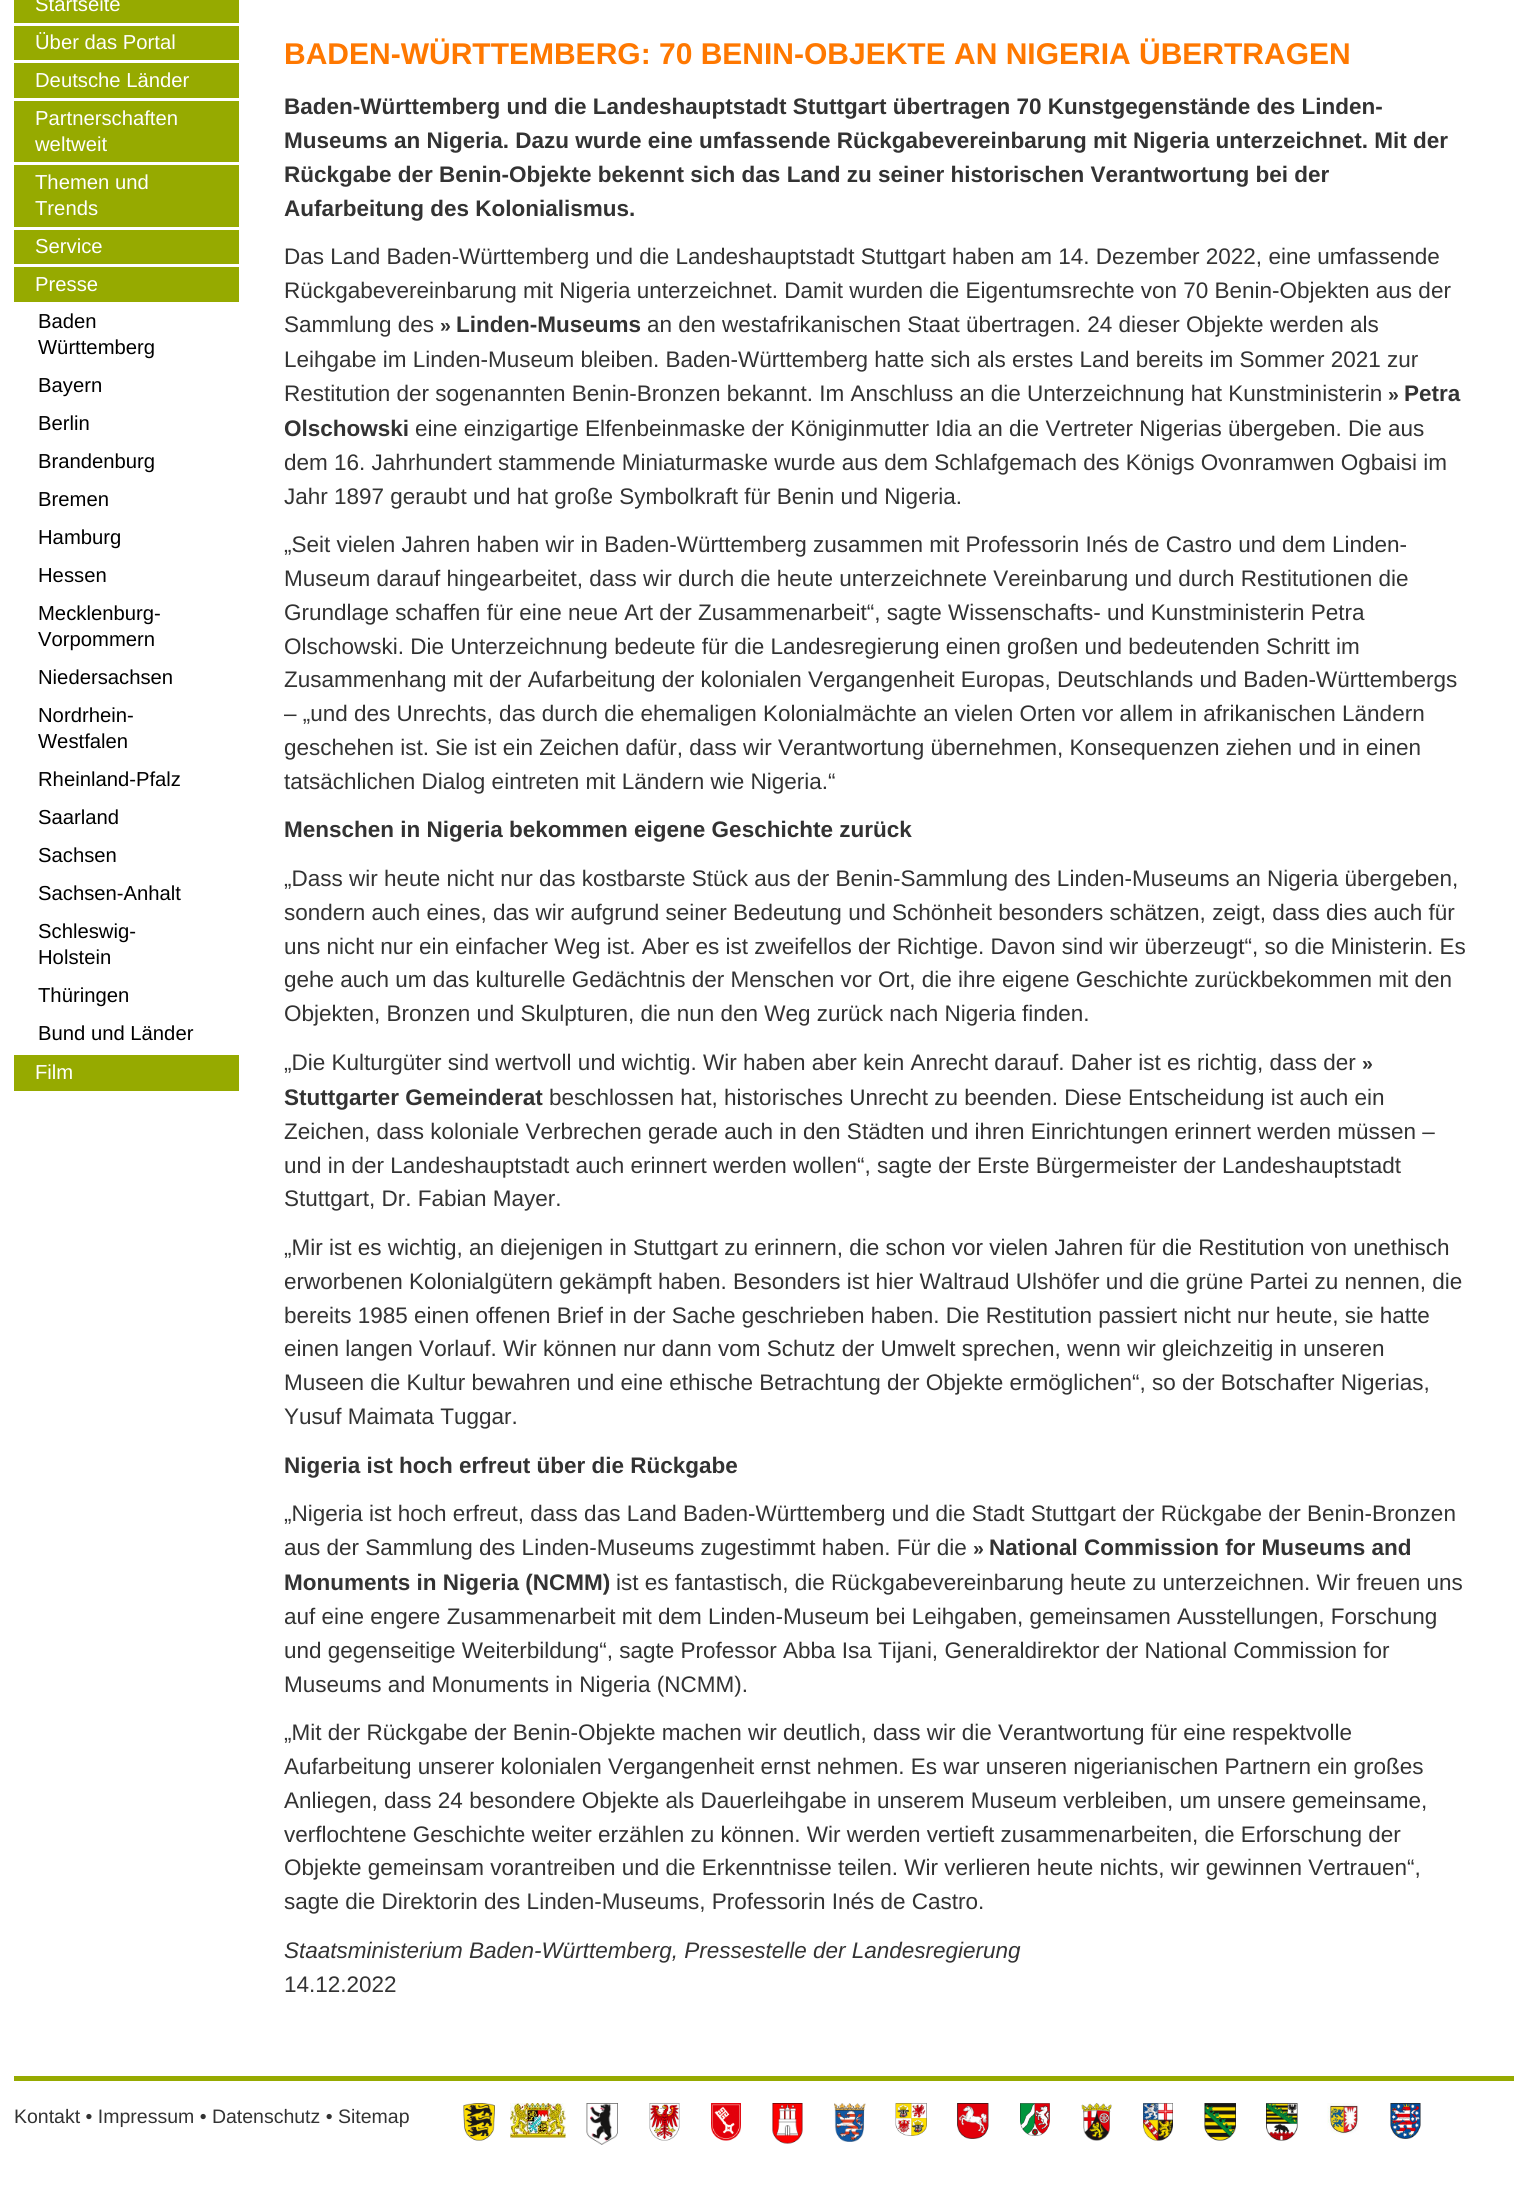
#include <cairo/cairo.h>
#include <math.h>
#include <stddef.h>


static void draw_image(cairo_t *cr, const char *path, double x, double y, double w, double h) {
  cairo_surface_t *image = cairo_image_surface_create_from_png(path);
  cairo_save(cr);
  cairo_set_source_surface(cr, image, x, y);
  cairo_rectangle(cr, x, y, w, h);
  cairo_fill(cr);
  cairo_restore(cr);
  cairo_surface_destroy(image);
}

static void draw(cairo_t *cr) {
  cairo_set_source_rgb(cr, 1, 1, 1);
  cairo_paint(cr);
  cairo_set_source_rgb(cr, 150 / 255.0, 170 / 255.0, 0);
  cairo_rectangle(cr, 14, 0, 225, 23);
  cairo_fill(cr);
  cairo_rectangle(cr, 14, 26, 225, 34);
  cairo_fill(cr);
  cairo_rectangle(cr, 14, 63, 225, 35);
  cairo_fill(cr);
  cairo_rectangle(cr, 14, 101, 225, 61);
  cairo_fill(cr);
  cairo_rectangle(cr, 14, 165, 225, 62);
  cairo_fill(cr);
  cairo_rectangle(cr, 14, 230, 225, 34);
  cairo_fill(cr);
  cairo_rectangle(cr, 14, 267, 225, 35);
  cairo_fill(cr);
  cairo_rectangle(cr, 14, 1055, 225, 36);
  cairo_fill(cr);
  cairo_rectangle(cr, 14, 2076, 1500, 5);
  cairo_fill(cr);
  draw_image(cr, "images/1.png", 463, 2103, 32, 38);
  draw_image(cr, "images/2.png", 510, 2103, 56, 35);
  draw_image(cr, "images/3.png", 586, 2103, 32, 42);
  draw_image(cr, "images/4.png", 649, 2103, 31, 38);
  draw_image(cr, "images/5.png", 711, 2103, 30, 38);
  draw_image(cr, "images/6.png", 772, 2103, 31, 41);
  draw_image(cr, "images/7.png", 834, 2103, 32, 39);
  draw_image(cr, "images/8.png", 895, 2103, 32, 33);
  draw_image(cr, "images/9.png", 957, 2103, 32, 36);
  draw_image(cr, "images/10.png", 1020, 2103, 30, 33);
  draw_image(cr, "images/11.png", 1081, 2103, 31, 38);
  draw_image(cr, "images/12.png", 1143, 2103, 30, 38);
  draw_image(cr, "images/13.png", 1204, 2103, 32, 38);
  draw_image(cr, "images/14.png", 1266, 2103, 32, 38);
  draw_image(cr, "images/15.png", 1327, 2103, 32, 32);
  draw_image(cr, "images/16.png", 1390, 2103, 31, 36);
  cairo_select_font_face(cr, "Liberation Sans", CAIRO_FONT_SLANT_NORMAL, CAIRO_FONT_WEIGHT_NORMAL);
  cairo_set_font_size(cr, 20.25);
  cairo_set_source_rgb(cr, 1, 1, 1);
  cairo_move_to(cr, 35, 11);
  cairo_show_text(cr, "Startseite");
  cairo_move_to(cr, 35, 49);
  cairo_show_text(cr, "Über das Portal");
  cairo_move_to(cr, 35, 87);
  cairo_show_text(cr, "Deutsche Länder");
  cairo_move_to(cr, 35, 125);
  cairo_show_text(cr, "Partnerschaften");
  cairo_move_to(cr, 35, 151);
  cairo_show_text(cr, "weltweit");
  cairo_move_to(cr, 35, 189);
  cairo_show_text(cr, "Themen und");
  cairo_move_to(cr, 35, 215);
  cairo_show_text(cr, "Trends");
  cairo_move_to(cr, 35, 253);
  cairo_show_text(cr, "Service");
  cairo_move_to(cr, 35, 291);
  cairo_show_text(cr, "Presse");
  cairo_set_source_rgb(cr, 0, 0, 0);
  cairo_move_to(cr, 38, 328);
  cairo_show_text(cr, "Baden");
  cairo_move_to(cr, 38, 354);
  cairo_show_text(cr, "Württemberg");
  cairo_move_to(cr, 38, 392);
  cairo_show_text(cr, "Bayern");
  cairo_move_to(cr, 38, 430);
  cairo_show_text(cr, "Berlin");
  cairo_move_to(cr, 38, 468);
  cairo_show_text(cr, "Brandenburg");
  cairo_move_to(cr, 38, 506);
  cairo_show_text(cr, "Bremen");
  cairo_move_to(cr, 38, 544);
  cairo_show_text(cr, "Hamburg");
  cairo_move_to(cr, 38, 582);
  cairo_show_text(cr, "Hessen");
  cairo_move_to(cr, 38, 620);
  cairo_show_text(cr, "Mecklenburg-");
  cairo_move_to(cr, 38, 646);
  cairo_show_text(cr, "Vorpommern");
  cairo_move_to(cr, 38, 684);
  cairo_show_text(cr, "Niedersachsen");
  cairo_move_to(cr, 38, 722);
  cairo_show_text(cr, "Nordrhein-");
  cairo_move_to(cr, 38, 748);
  cairo_show_text(cr, "Westfalen");
  cairo_move_to(cr, 38, 786);
  cairo_show_text(cr, "Rheinland-Pfalz");
  cairo_move_to(cr, 38, 824);
  cairo_show_text(cr, "Saarland");
  cairo_move_to(cr, 38, 862);
  cairo_show_text(cr, "Sachsen");
  cairo_move_to(cr, 38, 900);
  cairo_show_text(cr, "Sachsen-Anhalt");
  cairo_move_to(cr, 38, 938);
  cairo_show_text(cr, "Schleswig-");
  cairo_move_to(cr, 38, 964);
  cairo_show_text(cr, "Holstein");
  cairo_move_to(cr, 38, 1002);
  cairo_show_text(cr, "Thüringen");
  cairo_move_to(cr, 38, 1040);
  cairo_show_text(cr, "Bund und Länder");
  cairo_set_source_rgb(cr, 1, 1, 1);
  cairo_move_to(cr, 35, 1079);
  cairo_show_text(cr, "Film");
  cairo_select_font_face(cr, "Liberation Sans", CAIRO_FONT_SLANT_NORMAL, CAIRO_FONT_WEIGHT_BOLD);
  cairo_set_font_size(cr, 30);
  cairo_set_source_rgb(cr, 1, 120 / 255.0, 0);
  cairo_move_to(cr, 284, 64);
  cairo_show_text(cr, "BADEN-WÜRTTEMBERG: 70 BENIN-OBJEKTE AN NIGERIA ÜBERTRAGEN");
  cairo_set_font_size(cr, 22.5);
  cairo_set_source_rgb(cr, 51 / 255.0, 51 / 255.0, 51 / 255.0);
  cairo_move_to(cr, 284, 114);
  cairo_show_text(cr, "Baden-Württemberg und die Landeshauptstadt Stuttgart übertragen 70 Kunstgegenstände des Linden-");
  cairo_move_to(cr, 284, 148);
  cairo_show_text(cr, "Museums an Nigeria. Dazu wurde eine umfassende Rückgabevereinbarung mit Nigeria unterzeichnet. Mit der");
  cairo_move_to(cr, 284, 182);
  cairo_show_text(cr, "Rückgabe der Benin-Objekte bekennt sich das Land zu seiner historischen Verantwortung bei der");
  cairo_move_to(cr, 284, 216);
  cairo_show_text(cr, "Aufarbeitung des Kolonialismus.");
  cairo_select_font_face(cr, "Liberation Sans", CAIRO_FONT_SLANT_NORMAL, CAIRO_FONT_WEIGHT_NORMAL);
  cairo_move_to(cr, 284, 264);
  cairo_show_text(cr, "Das Land Baden-Württemberg und die Landeshauptstadt Stuttgart haben am 14. Dezember 2022, eine umfassende");
  cairo_move_to(cr, 284, 298);
  cairo_show_text(cr, "Rückgabevereinbarung mit Nigeria unterzeichnet. Damit wurden die Eigentumsrechte von 70 Benin-Objekten aus der");
  cairo_move_to(cr, 284, 332);
  cairo_show_text(cr, "Sammlung des");
  cairo_select_font_face(cr, "Liberation Sans", CAIRO_FONT_SLANT_NORMAL, CAIRO_FONT_WEIGHT_BOLD);
  cairo_set_font_size(cr, 19.5);
  cairo_move_to(cr, 440, 332);
  cairo_show_text(cr, "»");
  cairo_set_font_size(cr, 22.5);
  cairo_move_to(cr, 456, 332);
  cairo_show_text(cr, "Linden-Museums");
  cairo_select_font_face(cr, "Liberation Sans", CAIRO_FONT_SLANT_NORMAL, CAIRO_FONT_WEIGHT_NORMAL);
  cairo_move_to(cr, 647, 332);
  cairo_show_text(cr, "an den westafrikanischen Staat übertragen. 24 dieser Objekte werden als");
  cairo_move_to(cr, 284, 367);
  cairo_show_text(cr, "Leihgabe im Linden-Museum bleiben. Baden-Württemberg hatte sich als erstes Land bereits im Sommer 2021 zur");
  cairo_move_to(cr, 284, 401);
  cairo_show_text(cr, "Restitution der sogenannten Benin-Bronzen bekannt. Im Anschluss an die Unterzeichnung hat Kunstministerin");
  cairo_select_font_face(cr, "Liberation Sans", CAIRO_FONT_SLANT_NORMAL, CAIRO_FONT_WEIGHT_BOLD);
  cairo_set_font_size(cr, 19.5);
  cairo_move_to(cr, 1388, 401);
  cairo_show_text(cr, "»");
  cairo_set_font_size(cr, 22.5);
  cairo_move_to(cr, 1404, 401);
  cairo_show_text(cr, "Petra");
  cairo_move_to(cr, 284, 436);
  cairo_show_text(cr, "Olschowski");
  cairo_select_font_face(cr, "Liberation Sans", CAIRO_FONT_SLANT_NORMAL, CAIRO_FONT_WEIGHT_NORMAL);
  cairo_move_to(cr, 415, 436);
  cairo_show_text(cr, "eine einzigartige Elfenbeinmaske der Königinmutter Idia an die Vertreter Nigerias übergeben. Die aus");
  cairo_move_to(cr, 284, 470);
  cairo_show_text(cr, "dem 16. Jahrhundert stammende Miniaturmaske wurde aus dem Schlafgemach des Königs Ovonramwen Ogbaisi im");
  cairo_move_to(cr, 284, 504);
  cairo_show_text(cr, "Jahr 1897 geraubt und hat große Symbolkraft für Benin und Nigeria.");
  cairo_move_to(cr, 284, 552);
  cairo_show_text(cr, "„Seit vielen Jahren haben wir in Baden-Württemberg zusammen mit Professorin Inés de Castro und dem Linden-");
  cairo_move_to(cr, 284, 586);
  cairo_show_text(cr, "Museum darauf hingearbeitet, dass wir durch die heute unterzeichnete Vereinbarung und durch Restitutionen die");
  cairo_move_to(cr, 284, 620);
  cairo_show_text(cr, "Grundlage schaffen für eine neue Art der Zusammenarbeit“, sagte Wissenschafts- und Kunstministerin Petra");
  cairo_move_to(cr, 284, 654);
  cairo_show_text(cr, "Olschowski. Die Unterzeichnung bedeute für die Landesregierung einen großen und bedeutenden Schritt im");
  cairo_move_to(cr, 284, 687);
  cairo_show_text(cr, "Zusammenhang mit der Aufarbeitung der kolonialen Vergangenheit Europas, Deutschlands und Baden-Württembergs");
  cairo_move_to(cr, 284, 721);
  cairo_show_text(cr, "– „und des Unrechts, das durch die ehemaligen Kolonialmächte an vielen Orten vor allem in afrikanischen Ländern");
  cairo_move_to(cr, 284, 755);
  cairo_show_text(cr, "geschehen ist. Sie ist ein Zeichen dafür, dass wir Verantwortung übernehmen, Konsequenzen ziehen und in einen");
  cairo_move_to(cr, 284, 789);
  cairo_show_text(cr, "tatsächlichen Dialog eintreten mit Ländern wie Nigeria.“");
  cairo_select_font_face(cr, "Liberation Sans", CAIRO_FONT_SLANT_NORMAL, CAIRO_FONT_WEIGHT_BOLD);
  cairo_move_to(cr, 284, 837);
  cairo_show_text(cr, "Menschen in Nigeria bekommen eigene Geschichte zurück");
  cairo_select_font_face(cr, "Liberation Sans", CAIRO_FONT_SLANT_NORMAL, CAIRO_FONT_WEIGHT_NORMAL);
  cairo_move_to(cr, 284, 886);
  cairo_show_text(cr, "„Dass wir heute nicht nur das kostbarste Stück aus der Benin-Sammlung des Linden-Museums an Nigeria übergeben,");
  cairo_move_to(cr, 284, 920);
  cairo_show_text(cr, "sondern auch eines, das wir aufgrund seiner Bedeutung und Schönheit besonders schätzen, zeigt, dass dies auch für");
  cairo_move_to(cr, 284, 954);
  cairo_show_text(cr, "uns nicht nur ein einfacher Weg ist. Aber es ist zweifellos der Richtige. Davon sind wir überzeugt“, so die Ministerin. Es");
  cairo_move_to(cr, 284, 987);
  cairo_show_text(cr, "gehe auch um das kulturelle Gedächtnis der Menschen vor Ort, die ihre eigene Geschichte zurückbekommen mit den");
  cairo_move_to(cr, 284, 1021);
  cairo_show_text(cr, "Objekten, Bronzen und Skulpturen, die nun den Weg zurück nach Nigeria finden.");
  cairo_move_to(cr, 284, 1070);
  cairo_show_text(cr, "„Die Kulturgüter sind wertvoll und wichtig. Wir haben aber kein Anrecht darauf. Daher ist es richtig, dass der");
  cairo_select_font_face(cr, "Liberation Sans", CAIRO_FONT_SLANT_NORMAL, CAIRO_FONT_WEIGHT_BOLD);
  cairo_set_font_size(cr, 19.5);
  cairo_move_to(cr, 1362, 1070);
  cairo_show_text(cr, "»");
  cairo_set_font_size(cr, 22.5);
  cairo_move_to(cr, 284, 1105);
  cairo_show_text(cr, "Stuttgarter Gemeinderat");
  cairo_select_font_face(cr, "Liberation Sans", CAIRO_FONT_SLANT_NORMAL, CAIRO_FONT_WEIGHT_NORMAL);
  cairo_move_to(cr, 549, 1105);
  cairo_show_text(cr, "beschlossen hat, historisches Unrecht zu beenden. Diese Entscheidung ist auch ein");
  cairo_move_to(cr, 284, 1139);
  cairo_show_text(cr, "Zeichen, dass koloniale Verbrechen gerade auch in den Städten und ihren Einrichtungen erinnert werden müssen –");
  cairo_move_to(cr, 284, 1173);
  cairo_show_text(cr, "und in der Landeshauptstadt auch erinnert werden wollen“, sagte der Erste Bürgermeister der Landeshauptstadt");
  cairo_move_to(cr, 284, 1206);
  cairo_show_text(cr, "Stuttgart, Dr. Fabian Mayer.");
  cairo_move_to(cr, 284, 1255);
  cairo_show_text(cr, "„Mir ist es wichtig, an diejenigen in Stuttgart zu erinnern, die schon vor vielen Jahren für die Restitution von unethisch");
  cairo_move_to(cr, 284, 1289);
  cairo_show_text(cr, "erworbenen Kolonialgütern gekämpft haben. Besonders ist hier Waltraud Ulshöfer und die grüne Partei zu nennen, die");
  cairo_move_to(cr, 284, 1323);
  cairo_show_text(cr, "bereits 1985 einen offenen Brief in der Sache geschrieben haben. Die Restitution passiert nicht nur heute, sie hatte");
  cairo_move_to(cr, 284, 1356);
  cairo_show_text(cr, "einen langen Vorlauf. Wir können nur dann vom Schutz der Umwelt sprechen, wenn wir gleichzeitig in unseren");
  cairo_move_to(cr, 284, 1390);
  cairo_show_text(cr, "Museen die Kultur bewahren und eine ethische Betrachtung der Objekte ermöglichen“, so der Botschafter Nigerias,");
  cairo_move_to(cr, 284, 1424);
  cairo_show_text(cr, "Yusuf Maimata Tuggar.");
  cairo_select_font_face(cr, "Liberation Sans", CAIRO_FONT_SLANT_NORMAL, CAIRO_FONT_WEIGHT_BOLD);
  cairo_move_to(cr, 284, 1473);
  cairo_show_text(cr, "Nigeria ist hoch erfreut über die Rückgabe");
  cairo_select_font_face(cr, "Liberation Sans", CAIRO_FONT_SLANT_NORMAL, CAIRO_FONT_WEIGHT_NORMAL);
  cairo_move_to(cr, 284, 1521);
  cairo_show_text(cr, "„Nigeria ist hoch erfreut, dass das Land Baden-Württemberg und die Stadt Stuttgart der Rückgabe der Benin-Bronzen");
  cairo_move_to(cr, 284, 1555);
  cairo_show_text(cr, "aus der Sammlung des Linden-Museums zugestimmt haben. Für die");
  cairo_select_font_face(cr, "Liberation Sans", CAIRO_FONT_SLANT_NORMAL, CAIRO_FONT_WEIGHT_BOLD);
  cairo_set_font_size(cr, 19.5);
  cairo_move_to(cr, 973, 1555);
  cairo_show_text(cr, "»");
  cairo_set_font_size(cr, 22.5);
  cairo_move_to(cr, 989, 1555);
  cairo_show_text(cr, "National Commission for Museums and");
  cairo_move_to(cr, 284, 1590);
  cairo_show_text(cr, "Monuments in Nigeria (NCMM)");
  cairo_select_font_face(cr, "Liberation Sans", CAIRO_FONT_SLANT_NORMAL, CAIRO_FONT_WEIGHT_NORMAL);
  cairo_move_to(cr, 616, 1590);
  cairo_show_text(cr, "ist es fantastisch, die Rückgabevereinbarung heute zu unterzeichnen. Wir freuen uns");
  cairo_move_to(cr, 284, 1624);
  cairo_show_text(cr, "auf eine engere Zusammenarbeit mit dem Linden-Museum bei Leihgaben, gemeinsamen Ausstellungen, Forschung");
  cairo_move_to(cr, 284, 1658);
  cairo_show_text(cr, "und gegenseitige Weiterbildung“, sagte Professor Abba Isa Tijani, Generaldirektor der National Commission for");
  cairo_move_to(cr, 284, 1692);
  cairo_show_text(cr, "Museums and Monuments in Nigeria (NCMM).");
  cairo_move_to(cr, 284, 1740);
  cairo_show_text(cr, "„Mit der Rückgabe der Benin-Objekte machen wir deutlich, dass wir die Verantwortung für eine respektvolle");
  cairo_move_to(cr, 284, 1774);
  cairo_show_text(cr, "Aufarbeitung unserer kolonialen Vergangenheit ernst nehmen. Es war unseren nigerianischen Partnern ein großes");
  cairo_move_to(cr, 284, 1808);
  cairo_show_text(cr, "Anliegen, dass 24 besondere Objekte als Dauerleihgabe in unserem Museum verbleiben, um unsere gemeinsame,");
  cairo_move_to(cr, 284, 1842);
  cairo_show_text(cr, "verflochtene Geschichte weiter erzählen zu können. Wir werden vertieft zusammenarbeiten, die Erforschung der");
  cairo_move_to(cr, 284, 1875);
  cairo_show_text(cr, "Objekte gemeinsam vorantreiben und die Erkenntnisse teilen. Wir verlieren heute nichts, wir gewinnen Vertrauen“,");
  cairo_move_to(cr, 284, 1909);
  cairo_show_text(cr, "sagte die Direktorin des Linden-Museums, Professorin Inés de Castro.");
  cairo_select_font_face(cr, "Liberation Sans", CAIRO_FONT_SLANT_ITALIC, CAIRO_FONT_WEIGHT_NORMAL);
  cairo_move_to(cr, 284, 1958);
  cairo_show_text(cr, "Staatsministerium Baden-Württemberg, Pressestelle der Landesregierung");
  cairo_select_font_face(cr, "Liberation Sans", CAIRO_FONT_SLANT_NORMAL, CAIRO_FONT_WEIGHT_NORMAL);
  cairo_move_to(cr, 284, 1992);
  cairo_show_text(cr, "14.12.2022");
  cairo_set_font_size(cr, 19.5);
  cairo_move_to(cr, 14, 2123);
  cairo_show_text(cr, "Kontakt • Impressum • Datenschutz • Sitemap");
}

int main(void) {
  cairo_surface_t *surface = cairo_image_surface_create(CAIRO_FORMAT_RGB24, 1527, 2204);
  cairo_t *cr = cairo_create(surface);
  cairo_font_options_t *options = cairo_font_options_create();
  cairo_font_options_set_hint_metrics(options, CAIRO_HINT_METRICS_OFF);
  cairo_font_options_set_hint_style(options, CAIRO_HINT_STYLE_NONE);
  cairo_set_font_options(cr, options);
  cairo_set_miter_limit(cr, 4);
  draw(cr);
  cairo_surface_write_to_png(surface, "out.png");
  cairo_font_options_destroy(options);
  cairo_destroy(cr);
  cairo_surface_destroy(surface);
  return 0;
}
